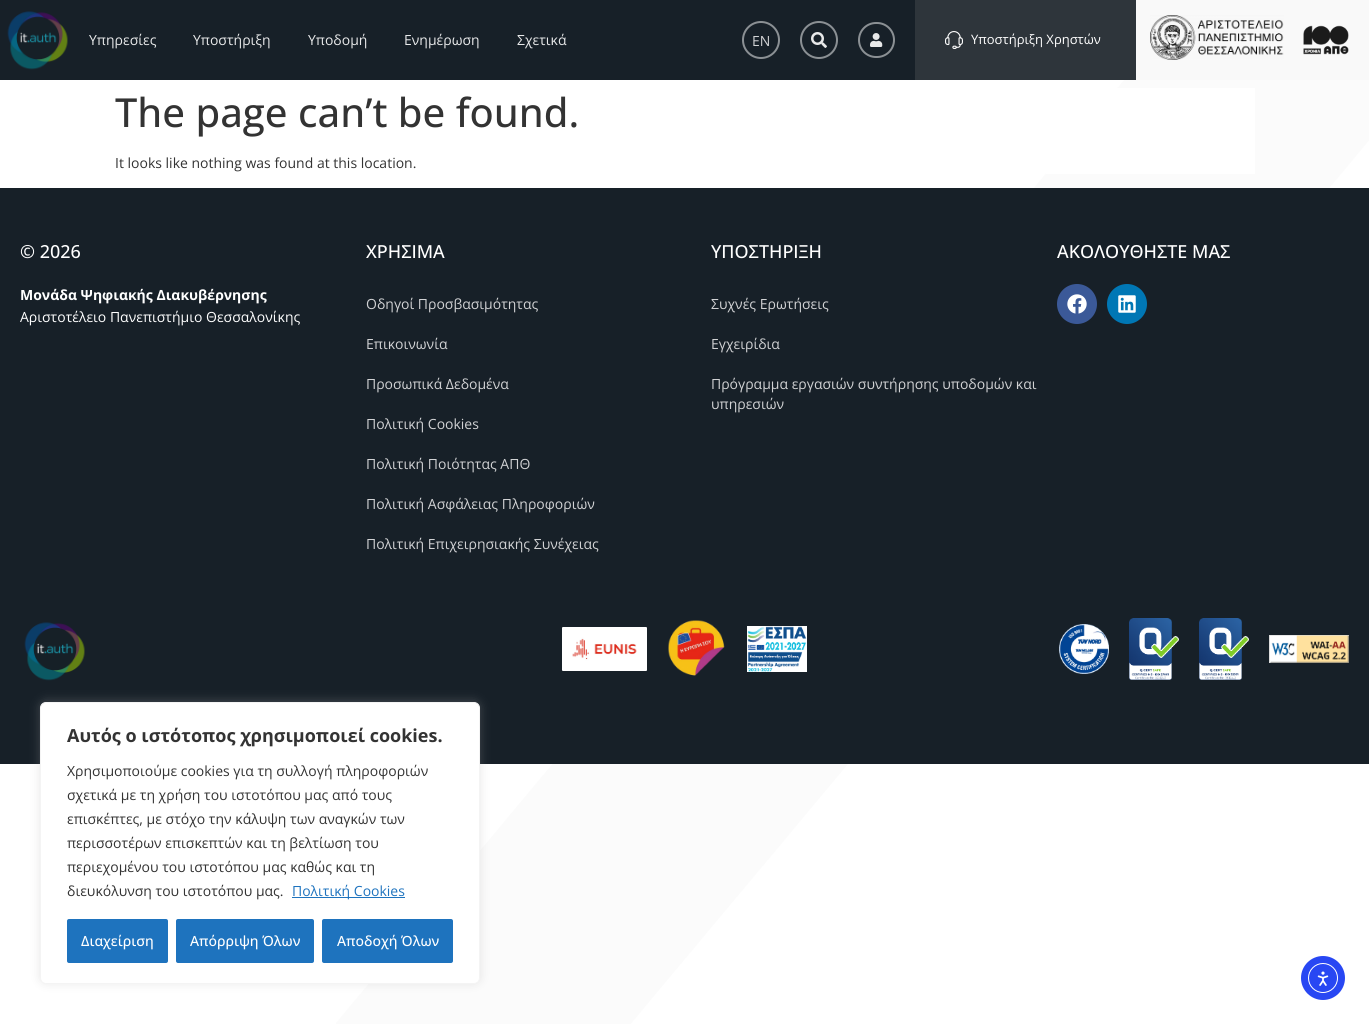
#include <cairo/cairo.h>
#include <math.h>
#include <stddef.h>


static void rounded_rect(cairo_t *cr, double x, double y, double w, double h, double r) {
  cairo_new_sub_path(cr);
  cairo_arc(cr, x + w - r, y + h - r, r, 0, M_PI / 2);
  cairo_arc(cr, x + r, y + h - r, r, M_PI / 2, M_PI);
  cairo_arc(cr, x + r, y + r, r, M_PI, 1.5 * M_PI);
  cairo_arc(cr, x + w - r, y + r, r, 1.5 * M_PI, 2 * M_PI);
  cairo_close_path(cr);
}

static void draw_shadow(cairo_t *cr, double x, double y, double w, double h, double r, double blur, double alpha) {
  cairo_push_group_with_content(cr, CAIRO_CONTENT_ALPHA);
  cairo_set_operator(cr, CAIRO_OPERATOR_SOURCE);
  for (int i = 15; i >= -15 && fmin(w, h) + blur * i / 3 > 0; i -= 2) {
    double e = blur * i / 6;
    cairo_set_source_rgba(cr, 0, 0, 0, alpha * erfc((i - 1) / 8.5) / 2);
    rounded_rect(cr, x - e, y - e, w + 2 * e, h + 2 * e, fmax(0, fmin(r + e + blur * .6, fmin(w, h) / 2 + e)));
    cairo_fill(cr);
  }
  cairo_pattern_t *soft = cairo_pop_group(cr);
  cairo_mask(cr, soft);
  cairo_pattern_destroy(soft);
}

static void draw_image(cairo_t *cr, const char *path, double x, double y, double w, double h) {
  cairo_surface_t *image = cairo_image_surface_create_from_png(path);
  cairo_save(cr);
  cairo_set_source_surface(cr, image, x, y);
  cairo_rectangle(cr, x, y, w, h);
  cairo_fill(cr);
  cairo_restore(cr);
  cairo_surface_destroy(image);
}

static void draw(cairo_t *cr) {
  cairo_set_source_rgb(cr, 1, 1, 1);
  cairo_paint(cr);
  draw_image(cr, "images/1.png", 336, 80, 1033, 944);
  cairo_set_source_rgb(cr, 23 / 255.0, 32 / 255.0, 40 / 255.0);
  cairo_rectangle(cr, 0, 0, 915, 80);
  cairo_fill(cr);
  cairo_set_source_rgb(cr, 249 / 255.0, 249 / 255.0, 249 / 255.0);
  cairo_rectangle(cr, 1136, 0, 233, 80);
  cairo_fill(cr);
  draw_image(cr, "images/2.png", 7, 11, 61, 59);
  cairo_arc(cr, 761, 40, 18, 0, 2 * M_PI);
  cairo_set_source_rgb(cr, 139 / 255.0, 144 / 255.0, 148 / 255.0);
  cairo_stroke(cr);
  cairo_arc(cr, 819, 40, 18, 0, 2 * M_PI);
  cairo_stroke(cr);
  draw_image(cr, "images/3.png", 811, 32, 16, 16);
  rounded_rect(cr, 859, 23, 35, 34, 17);
  cairo_stroke(cr);
  draw_image(cr, "images/4.png", 870, 33, 13, 14);
  cairo_set_source_rgb(cr, 46 / 255.0, 53 / 255.0, 59 / 255.0);
  cairo_rectangle(cr, 915, 0, 221, 80);
  cairo_fill(cr);
  draw_image(cr, "images/5.png", 945, 31, 18, 18);
  draw_image(cr, "images/6.png", 1150, 15, 134, 45);
  draw_image(cr, "images/7.png", 1303, 25, 46, 30);
  cairo_set_source_rgb(cr, 1, 1, 1);
  cairo_rectangle(cr, 1046, 88, 209, 86);
  cairo_fill(cr);
  cairo_set_source_rgb(cr, 23 / 255.0, 32 / 255.0, 40 / 255.0);
  cairo_rectangle(cr, 0, 188, 1369, 576);
  cairo_fill(cr);
  cairo_set_source_rgb(cr, 59 / 255.0, 89 / 255.0, 152 / 255.0);
  cairo_arc(cr, 1077, 304, 20, 0, 2 * M_PI);
  cairo_fill(cr);
  draw_image(cr, "images/8.png", 1067, 294, 20, 20);
  cairo_set_source_rgb(cr, 0, 119 / 255.0, 181 / 255.0);
  cairo_arc(cr, 1127, 304, 20, 0, 2 * M_PI);
  cairo_fill(cr);
  draw_image(cr, "images/9.png", 1118, 295, 18, 18);
  draw_image(cr, "images/10.png", 24, 622, 61, 59);
  draw_image(cr, "images/11.png", 562, 627, 85, 44);
  draw_image(cr, "images/12.png", 668, 620, 57, 56);
  cairo_set_source_rgb(cr, 1, 1, 1);
  cairo_rectangle(cr, 747, 626, 60, 46);
  cairo_fill(cr);
  draw_image(cr, "images/13.png", 747, 626, 60, 46);
  draw_image(cr, "images/14.png", 1059, 624, 50, 50);
  draw_image(cr, "images/15.png", 1129, 618, 50, 62);
  draw_image(cr, "images/16.png", 1199, 618, 50, 62);
  draw_image(cr, "images/17.png", 1269, 635, 80, 28);
  cairo_set_source_rgb(cr, 172 / 255.0, 171 / 255.0, 171 / 255.0);
  draw_shadow(cr, 40, 701, 440, 282, 6, 5, 0.3);
  cairo_set_source_rgb(cr, 1, 1, 1);
  rounded_rect(cr, 40.5, 702.5, 439, 281, 5.5);
  cairo_fill_preserve(cr);
  cairo_set_source_rgb(cr, 244 / 255.0, 244 / 255.0, 244 / 255.0);
  cairo_set_line_width(cr, 1);
  cairo_stroke(cr);
  cairo_set_source_rgb(cr, 30 / 255.0, 115 / 255.0, 190 / 255.0);
  cairo_rectangle(cr, 292, 897, 113, 1);
  cairo_fill(cr);
  rounded_rect(cr, 68, 920, 99, 42, 1);
  cairo_fill_preserve(cr);
  cairo_set_line_width(cr, 2);
  cairo_stroke(cr);
  rounded_rect(cr, 177, 920, 136, 42, 1);
  cairo_fill_preserve(cr);
  cairo_stroke(cr);
  rounded_rect(cr, 323, 920, 129, 42, 1);
  cairo_fill_preserve(cr);
  cairo_stroke(cr);
  cairo_set_source_rgb(cr, 40 / 255.0, 71 / 255.0, 243 / 255.0);
  cairo_arc(cr, 1323, 978, 22, 0, 2 * M_PI);
  cairo_fill(cr);
  cairo_arc(cr, 1323, 978, 14.5, 0, 2 * M_PI);
  cairo_set_source_rgb(cr, 1, 1, 1);
  cairo_set_line_width(cr, 1);
  cairo_stroke(cr);
  draw_image(cr, "images/18.png", 1317, 971, 12, 15);
  cairo_select_font_face(cr, "Open Sans", CAIRO_FONT_SLANT_NORMAL, CAIRO_FONT_WEIGHT_NORMAL);
  cairo_set_font_size(cr, 14);
  cairo_set_source_rgb(cr, 232 / 255.0, 233 / 255.0, 234 / 255.0);
  cairo_move_to(cr, 89, 45);
  cairo_show_text(cr, "Υπηρεσίες");
  cairo_move_to(cr, 193, 45);
  cairo_show_text(cr, "Υποστήριξη");
  cairo_move_to(cr, 308, 45);
  cairo_show_text(cr, "Υποδομή");
  cairo_move_to(cr, 404, 45);
  cairo_show_text(cr, "Ενημέρωση");
  cairo_move_to(cr, 517, 45);
  cairo_show_text(cr, "Σχετικά");
  cairo_set_source_rgb(cr, 209 / 255.0, 210 / 255.0, 212 / 255.0);
  cairo_move_to(cr, 752, 46);
  cairo_show_text(cr, "EN");
  cairo_set_font_size(cr, 13);
  cairo_set_source_rgb(cr, 1, 1, 1);
  cairo_move_to(cr, 971, 44);
  cairo_show_text(cr, "Υποστήριξη Χρηστών");
  cairo_select_font_face(cr, "Open Sans Medium", CAIRO_FONT_SLANT_NORMAL, CAIRO_FONT_WEIGHT_NORMAL);
  cairo_set_font_size(cr, 40);
  cairo_set_source_rgb(cr, 51 / 255.0, 51 / 255.0, 51 / 255.0);
  cairo_move_to(cr, 115, 127);
  cairo_show_text(cr, "The page can’t be found.");
  cairo_select_font_face(cr, "Open Sans", CAIRO_FONT_SLANT_NORMAL, CAIRO_FONT_WEIGHT_NORMAL);
  cairo_set_font_size(cr, 14);
  cairo_move_to(cr, 115, 168);
  cairo_show_text(cr, "It looks like nothing was found at this location.");
  cairo_select_font_face(cr, "Open Sans Medium", CAIRO_FONT_SLANT_NORMAL, CAIRO_FONT_WEIGHT_NORMAL);
  cairo_set_font_size(cr, 18);
  cairo_set_source_rgb(cr, 1, 1, 1);
  cairo_move_to(cr, 20, 258);
  cairo_show_text(cr, "© 2026");
  cairo_select_font_face(cr, "Open Sans", CAIRO_FONT_SLANT_NORMAL, CAIRO_FONT_WEIGHT_BOLD);
  cairo_set_font_size(cr, 14);
  cairo_move_to(cr, 20, 300);
  cairo_show_text(cr, "Μονάδα Ψηφιακής Διακυβέρνησης");
  cairo_select_font_face(cr, "Open Sans", CAIRO_FONT_SLANT_NORMAL, CAIRO_FONT_WEIGHT_NORMAL);
  cairo_move_to(cr, 20, 322);
  cairo_show_text(cr, "Αριστοτέλειο Πανεπιστήμιο Θεσσαλονίκης");
  cairo_select_font_face(cr, "Open Sans Medium", CAIRO_FONT_SLANT_NORMAL, CAIRO_FONT_WEIGHT_NORMAL);
  cairo_set_font_size(cr, 18);
  cairo_move_to(cr, 366, 258);
  cairo_show_text(cr, "ΧΡΗΣΙΜΑ");
  cairo_select_font_face(cr, "Open Sans", CAIRO_FONT_SLANT_NORMAL, CAIRO_FONT_WEIGHT_NORMAL);
  cairo_set_font_size(cr, 14);
  cairo_set_source_rgb(cr, 209 / 255.0, 210 / 255.0, 212 / 255.0);
  cairo_move_to(cr, 366, 309);
  cairo_show_text(cr, "Οδηγοί Προσβασιμότητας");
  cairo_move_to(cr, 366, 349);
  cairo_show_text(cr, "Επικοινωνία");
  cairo_move_to(cr, 366, 389);
  cairo_show_text(cr, "Προσωπικά Δεδομένα");
  cairo_move_to(cr, 366, 429);
  cairo_show_text(cr, "Πολιτική Cookies");
  cairo_move_to(cr, 366, 469);
  cairo_show_text(cr, "Πολιτική Ποιότητας ΑΠΘ");
  cairo_move_to(cr, 366, 509);
  cairo_show_text(cr, "Πολιτική Ασφάλειας Πληροφοριών");
  cairo_move_to(cr, 366, 549);
  cairo_show_text(cr, "Πολιτική Επιχειρησιακής Συνέχειας");
  cairo_select_font_face(cr, "Open Sans Medium", CAIRO_FONT_SLANT_NORMAL, CAIRO_FONT_WEIGHT_NORMAL);
  cairo_set_font_size(cr, 18);
  cairo_set_source_rgb(cr, 1, 1, 1);
  cairo_move_to(cr, 711, 258);
  cairo_show_text(cr, "ΥΠΟΣΤΗΡΙΞΗ");
  cairo_select_font_face(cr, "Open Sans", CAIRO_FONT_SLANT_NORMAL, CAIRO_FONT_WEIGHT_NORMAL);
  cairo_set_font_size(cr, 14);
  cairo_set_source_rgb(cr, 209 / 255.0, 210 / 255.0, 212 / 255.0);
  cairo_move_to(cr, 711, 309);
  cairo_show_text(cr, "Συχνές Ερωτήσεις");
  cairo_move_to(cr, 711, 349);
  cairo_show_text(cr, "Εγχειρίδια");
  cairo_move_to(cr, 711, 389);
  cairo_show_text(cr, "Πρόγραμμα εργασιών συντήρησης υποδομών και");
  cairo_move_to(cr, 711, 409);
  cairo_show_text(cr, "υπηρεσιών");
  cairo_select_font_face(cr, "Open Sans Medium", CAIRO_FONT_SLANT_NORMAL, CAIRO_FONT_WEIGHT_NORMAL);
  cairo_set_font_size(cr, 18);
  cairo_set_source_rgb(cr, 1, 1, 1);
  cairo_move_to(cr, 1057, 258);
  cairo_show_text(cr, "ΑΚΟΛΟΥΘΗΣΤΕ ΜΑΣ");
  cairo_select_font_face(cr, "Open Sans", CAIRO_FONT_SLANT_NORMAL, CAIRO_FONT_WEIGHT_BOLD);
  cairo_set_source_rgb(cr, 51 / 255.0, 51 / 255.0, 51 / 255.0);
  cairo_move_to(cr, 67, 742);
  cairo_show_text(cr, "Αυτός ο ιστότοπος χρησιμοποιεί cookies.");
  cairo_select_font_face(cr, "Open Sans", CAIRO_FONT_SLANT_NORMAL, CAIRO_FONT_WEIGHT_NORMAL);
  cairo_set_font_size(cr, 14);
  cairo_move_to(cr, 67, 776);
  cairo_show_text(cr, "Χρησιμοποιούμε cookies για τη συλλογή πληροφοριών");
  cairo_move_to(cr, 67, 800);
  cairo_show_text(cr, "σχετικά με τη χρήση του ιστοτόπου μας από τους");
  cairo_move_to(cr, 67, 824);
  cairo_show_text(cr, "επισκέπτες, με στόχο την κάλυψη των αναγκών των");
  cairo_move_to(cr, 67, 848);
  cairo_show_text(cr, "περισσοτέρων επισκεπτών και τη βελτίωση του");
  cairo_move_to(cr, 67, 872);
  cairo_show_text(cr, "περιεχομένου του ιστοτόπου μας καθώς και τη");
  cairo_move_to(cr, 67, 896);
  cairo_show_text(cr, "διευκόλυνση του ιστοτόπου μας.");
  cairo_set_source_rgb(cr, 30 / 255.0, 115 / 255.0, 190 / 255.0);
  cairo_move_to(cr, 292, 896);
  cairo_show_text(cr, "Πολιτική Cookies");
  cairo_select_font_face(cr, "Open Sans Medium", CAIRO_FONT_SLANT_NORMAL, CAIRO_FONT_WEIGHT_NORMAL);
  cairo_set_source_rgb(cr, 1, 1, 1);
  cairo_move_to(cr, 81, 946);
  cairo_show_text(cr, "Διαχείριση");
  cairo_move_to(cr, 190, 946);
  cairo_show_text(cr, "Απόρριψη Όλων");
  cairo_move_to(cr, 337, 946);
  cairo_show_text(cr, "Αποδοχή Όλων");
}

int main(void) {
  cairo_surface_t *surface = cairo_image_surface_create(CAIRO_FORMAT_RGB24, 1369, 1024);
  cairo_t *cr = cairo_create(surface);
  cairo_font_options_t *options = cairo_font_options_create();
  cairo_font_options_set_hint_metrics(options, CAIRO_HINT_METRICS_OFF);
  cairo_font_options_set_hint_style(options, CAIRO_HINT_STYLE_NONE);
  cairo_set_font_options(cr, options);
  cairo_set_miter_limit(cr, 4);
  draw(cr);
  cairo_surface_write_to_png(surface, "out.png");
  cairo_font_options_destroy(options);
  cairo_destroy(cr);
  cairo_surface_destroy(surface);
  return 0;
}
